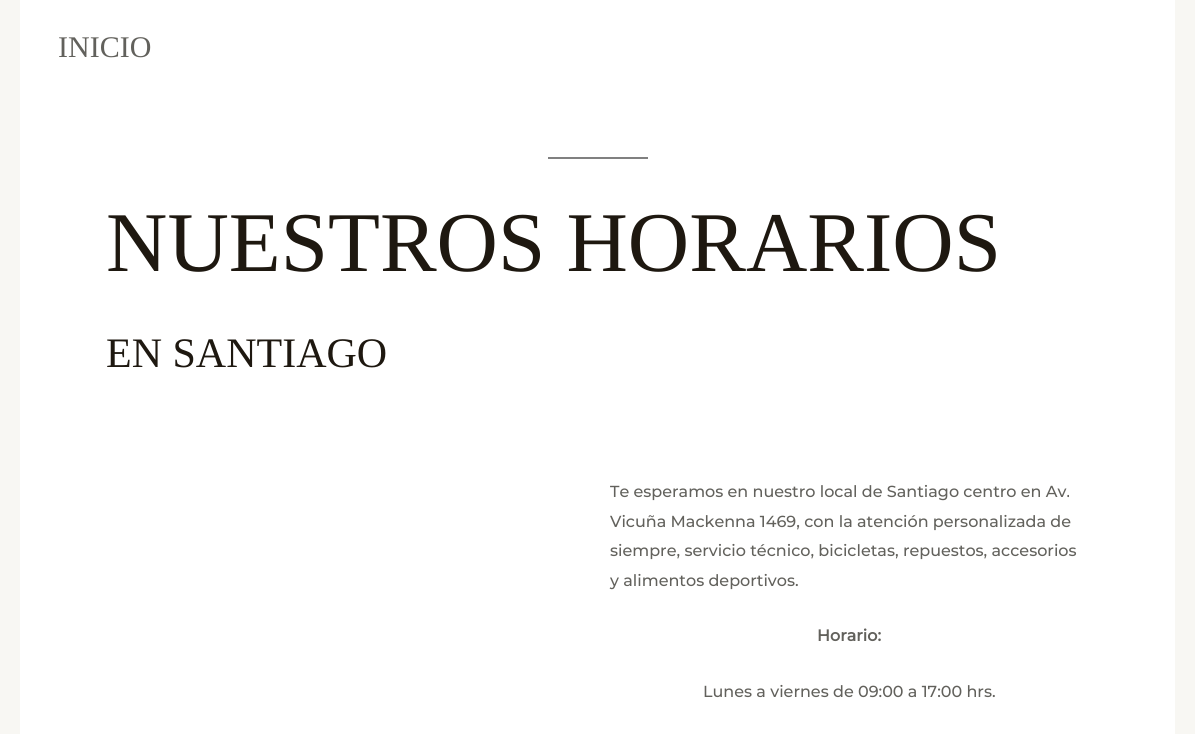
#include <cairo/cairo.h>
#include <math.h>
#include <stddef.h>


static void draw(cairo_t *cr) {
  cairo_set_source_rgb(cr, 248 / 255.0, 247 / 255.0, 243 / 255.0);
  cairo_paint(cr);
  cairo_set_source_rgb(cr, 1, 1, 1);
  cairo_rectangle(cr, 20, 0, 1155, 734);
  cairo_fill(cr);
  cairo_set_source_rgb(cr, 128 / 255.0, 128 / 255.0, 128 / 255.0);
  cairo_rectangle(cr, 548, 157, 100, 2);
  cairo_fill(cr);
  cairo_select_font_face(cr, "Liberation Serif", CAIRO_FONT_SLANT_NORMAL, CAIRO_FONT_WEIGHT_NORMAL);
  cairo_set_font_size(cr, 30);
  cairo_set_source_rgb(cr, 98 / 255.0, 97 / 255.0, 92 / 255.0);
  cairo_move_to(cr, 58, 57);
  cairo_show_text(cr, "INICIO");
  cairo_set_font_size(cr, 85);
  cairo_set_source_rgb(cr, 30 / 255.0, 24 / 255.0, 16 / 255.0);
  cairo_move_to(cr, 106, 271);
  cairo_show_text(cr, "NUESTROS HORARIOS");
  cairo_set_font_size(cr, 42);
  cairo_move_to(cr, 106, 367);
  cairo_show_text(cr, "EN SANTIAGO");
  cairo_select_font_face(cr, "Montserrat Thin", CAIRO_FONT_SLANT_NORMAL, CAIRO_FONT_WEIGHT_NORMAL);
  cairo_set_font_size(cr, 16);
  cairo_set_source_rgb(cr, 98 / 255.0, 97 / 255.0, 92 / 255.0);
  cairo_move_to(cr, 610, 497);
  cairo_show_text(cr, "Te esperamos en nuestro local de Santiago centro en Av.");
  cairo_move_to(cr, 610, 527);
  cairo_show_text(cr, "Vicuña Mackenna 1469, con la atención personalizada de");
  cairo_move_to(cr, 610, 556);
  cairo_show_text(cr, "siempre, servicio técnico, bicicletas, repuestos, accesorios");
  cairo_move_to(cr, 610, 586);
  cairo_show_text(cr, "y alimentos deportivos.");
  cairo_select_font_face(cr, "Montserrat", CAIRO_FONT_SLANT_NORMAL, CAIRO_FONT_WEIGHT_BOLD);
  cairo_move_to(cr, 817, 641);
  cairo_show_text(cr, "Horario:");
  cairo_select_font_face(cr, "Montserrat Thin", CAIRO_FONT_SLANT_NORMAL, CAIRO_FONT_WEIGHT_NORMAL);
  cairo_move_to(cr, 703, 697);
  cairo_show_text(cr, "Lunes a viernes de 09:00 a 17:00 hrs.");
}

int main(void) {
  cairo_surface_t *surface = cairo_image_surface_create(CAIRO_FORMAT_RGB24, 1195, 734);
  cairo_t *cr = cairo_create(surface);
  cairo_font_options_t *options = cairo_font_options_create();
  cairo_font_options_set_hint_metrics(options, CAIRO_HINT_METRICS_OFF);
  cairo_font_options_set_hint_style(options, CAIRO_HINT_STYLE_NONE);
  cairo_set_font_options(cr, options);
  cairo_set_miter_limit(cr, 4);
  draw(cr);
  cairo_surface_write_to_png(surface, "out.png");
  cairo_font_options_destroy(options);
  cairo_destroy(cr);
  cairo_surface_destroy(surface);
  return 0;
}
